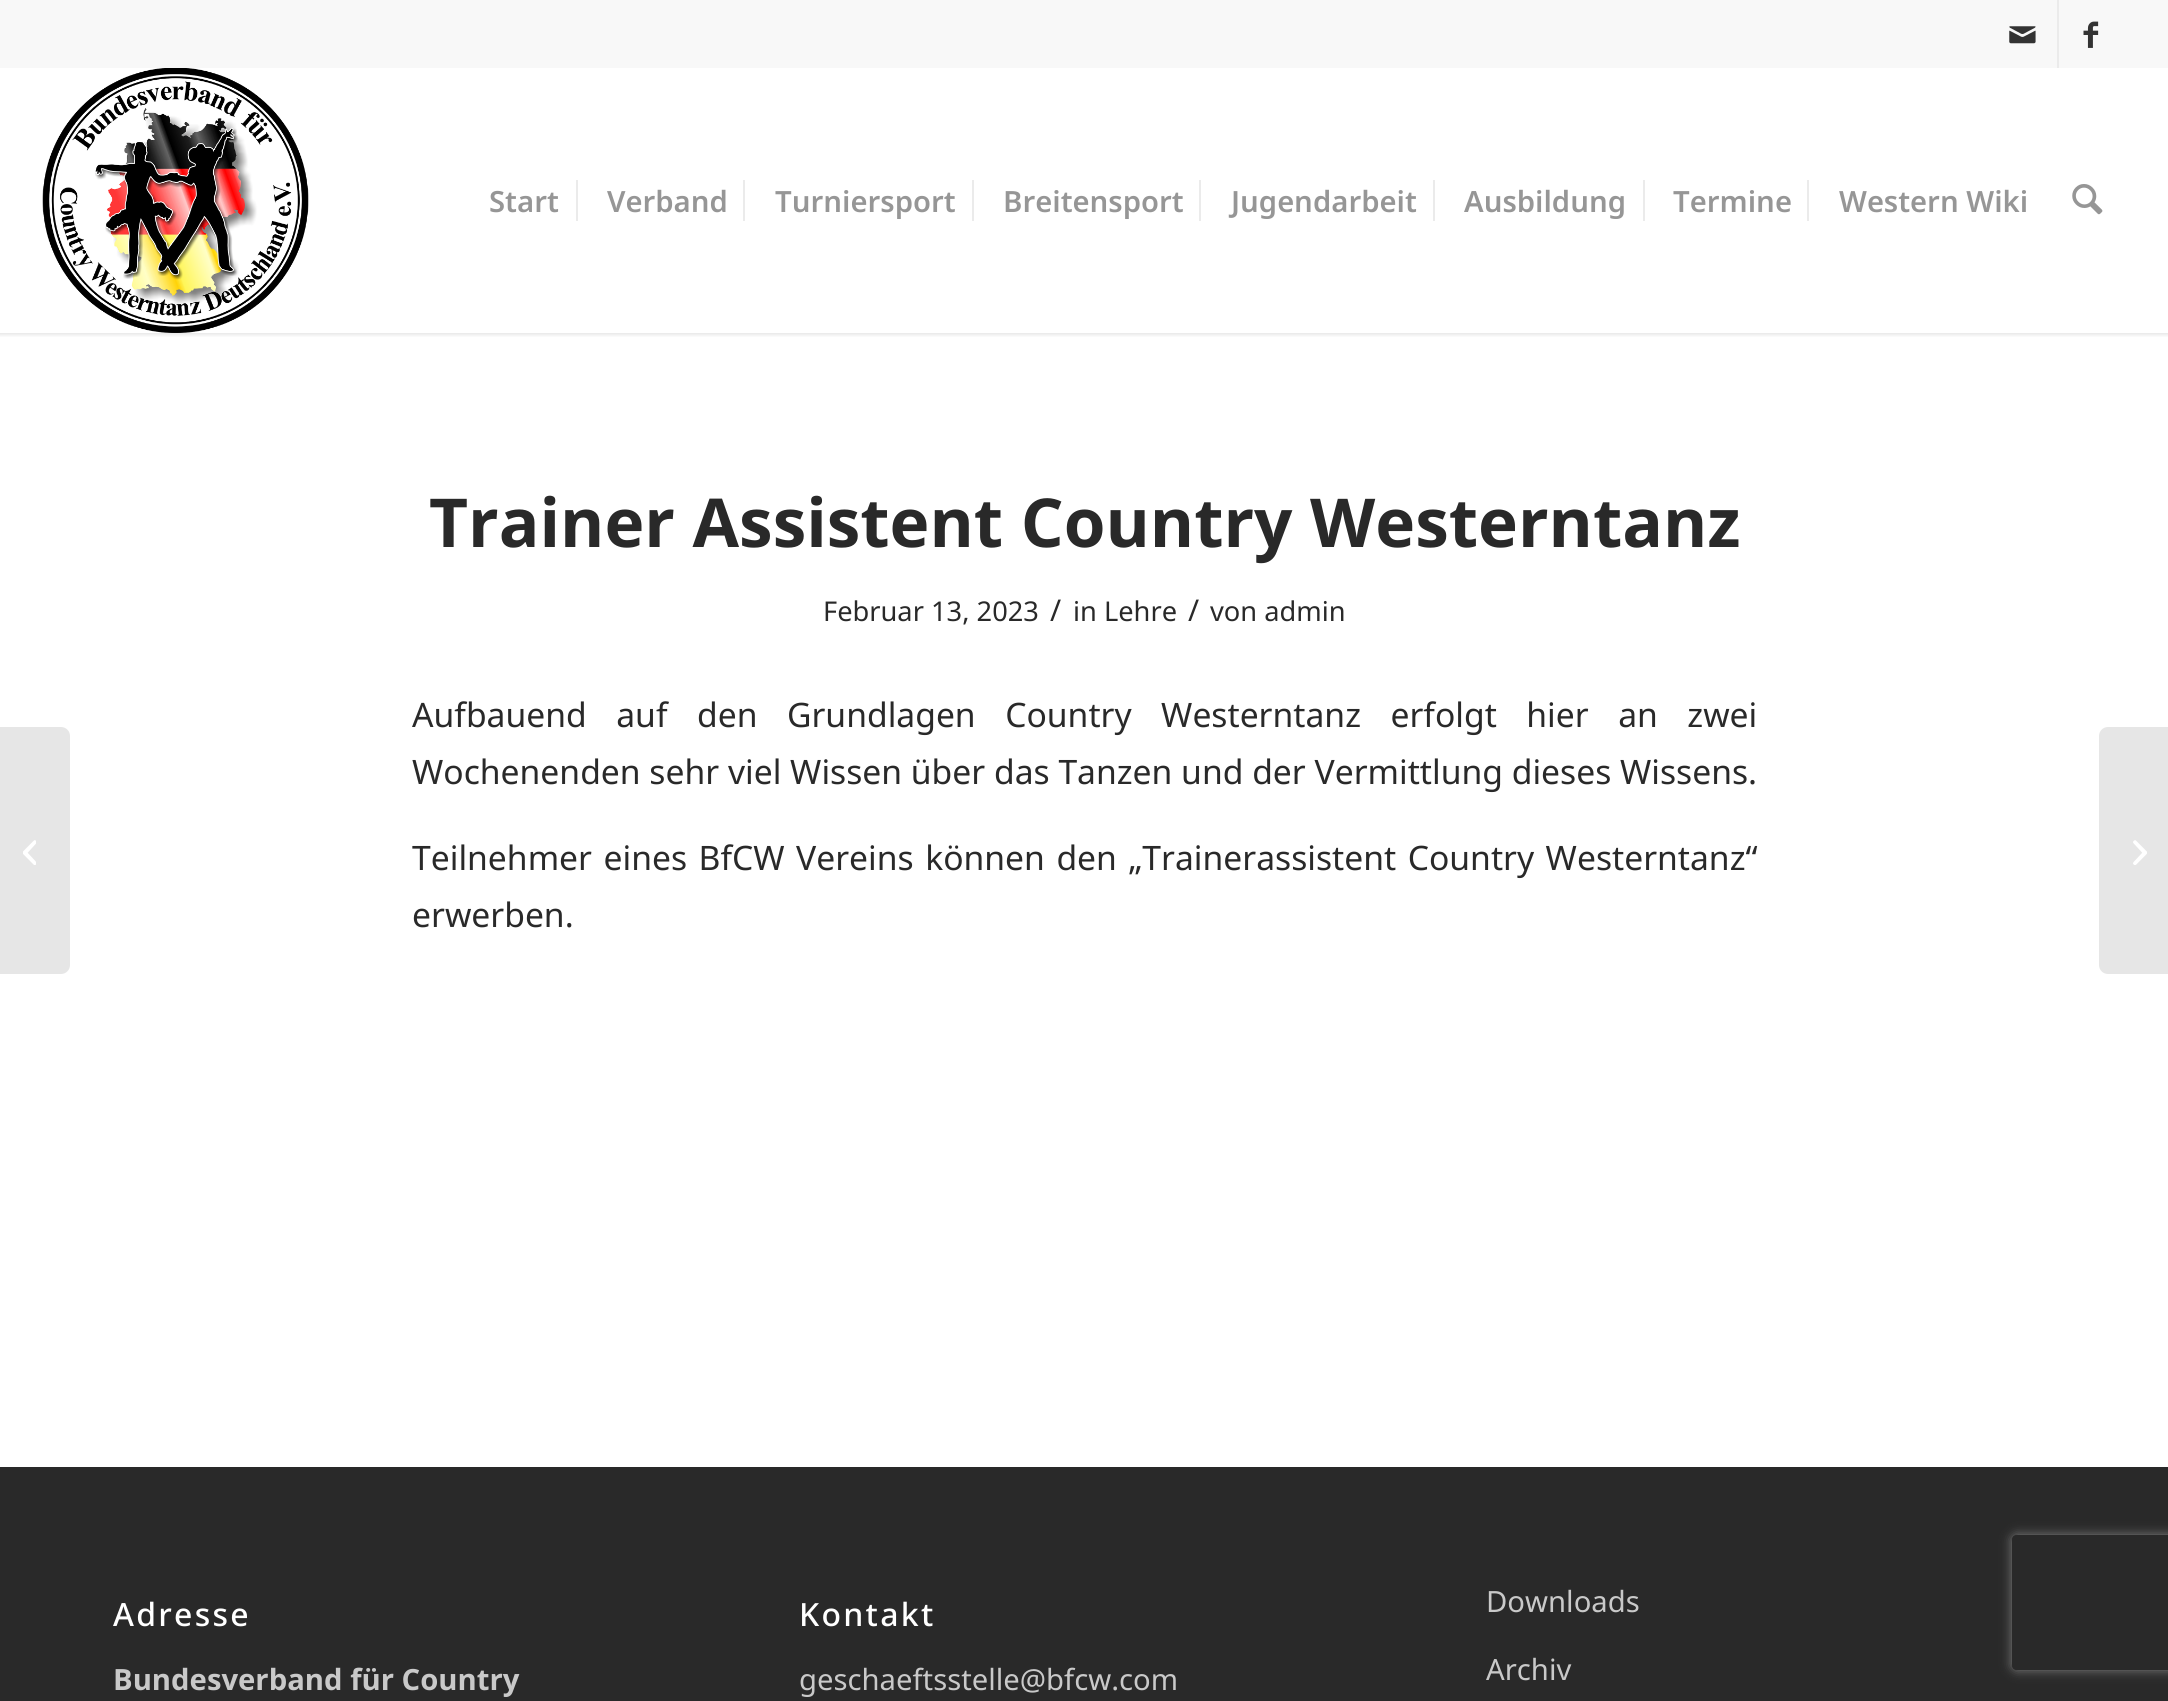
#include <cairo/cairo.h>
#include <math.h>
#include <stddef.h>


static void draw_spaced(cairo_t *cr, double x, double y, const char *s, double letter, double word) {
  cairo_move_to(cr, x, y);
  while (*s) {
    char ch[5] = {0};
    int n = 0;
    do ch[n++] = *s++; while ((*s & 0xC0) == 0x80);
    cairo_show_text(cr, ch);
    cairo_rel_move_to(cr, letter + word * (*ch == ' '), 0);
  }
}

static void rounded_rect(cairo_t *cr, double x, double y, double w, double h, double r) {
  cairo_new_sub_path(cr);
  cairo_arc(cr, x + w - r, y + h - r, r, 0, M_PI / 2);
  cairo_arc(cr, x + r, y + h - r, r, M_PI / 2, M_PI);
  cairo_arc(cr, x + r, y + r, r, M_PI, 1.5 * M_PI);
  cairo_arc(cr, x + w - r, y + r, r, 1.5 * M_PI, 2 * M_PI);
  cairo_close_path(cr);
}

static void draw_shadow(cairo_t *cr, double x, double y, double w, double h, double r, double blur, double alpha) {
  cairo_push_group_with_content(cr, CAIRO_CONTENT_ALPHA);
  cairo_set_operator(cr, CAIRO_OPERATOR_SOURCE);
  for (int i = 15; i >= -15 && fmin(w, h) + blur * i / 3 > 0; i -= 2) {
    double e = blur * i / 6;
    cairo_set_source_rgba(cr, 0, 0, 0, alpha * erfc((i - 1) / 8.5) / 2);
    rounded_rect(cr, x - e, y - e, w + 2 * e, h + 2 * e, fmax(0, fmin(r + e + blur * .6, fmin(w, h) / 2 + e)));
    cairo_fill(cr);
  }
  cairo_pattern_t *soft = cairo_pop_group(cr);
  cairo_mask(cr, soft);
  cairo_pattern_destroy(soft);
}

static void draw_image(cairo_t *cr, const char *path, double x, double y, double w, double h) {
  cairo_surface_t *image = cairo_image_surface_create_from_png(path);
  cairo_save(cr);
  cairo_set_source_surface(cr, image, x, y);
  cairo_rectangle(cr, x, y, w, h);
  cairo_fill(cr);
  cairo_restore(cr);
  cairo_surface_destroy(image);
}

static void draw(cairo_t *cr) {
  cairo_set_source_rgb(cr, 1, 1, 1);
  cairo_paint(cr);
  cairo_save(cr);
  cairo_rectangle(cr, 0, 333, 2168, 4);
  cairo_clip(cr);
  cairo_set_source_rgb(cr, 0, 0, 0);
  draw_shadow(cr, -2, -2, 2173, 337, 0, 2, 0.1);
  cairo_restore(cr);
  cairo_set_source_rgb(cr, 248 / 255.0, 248 / 255.0, 248 / 255.0);
  cairo_rectangle(cr, 0, 0, 2168, 68);
  cairo_fill(cr);
  cairo_set_source_rgb(cr, 235 / 255.0, 235 / 255.0, 235 / 255.0);
  cairo_rectangle(cr, 2057, 0, 2, 68);
  cairo_fill(cr);
  draw_image(cr, "images/1.png", 2009, 26, 27, 18);
  draw_image(cr, "images/2.png", 2083, 21, 16, 27);
  draw_image(cr, "images/3.png", 42, 68, 267, 265);
  cairo_rectangle(cr, 576, 180, 2, 41);
  cairo_fill(cr);
  cairo_rectangle(cr, 743, 180, 2, 41);
  cairo_fill(cr);
  cairo_rectangle(cr, 972, 180, 2, 41);
  cairo_fill(cr);
  cairo_rectangle(cr, 1199, 180, 2, 41);
  cairo_fill(cr);
  cairo_rectangle(cr, 1433, 180, 2, 41);
  cairo_fill(cr);
  cairo_rectangle(cr, 1643, 180, 2, 41);
  cairo_fill(cr);
  cairo_rectangle(cr, 1807, 180, 2, 41);
  cairo_fill(cr);
  draw_image(cr, "images/4.png", 2072, 184, 31, 31);
  cairo_set_source_rgb(cr, 230 / 255.0, 230 / 255.0, 230 / 255.0);
  cairo_new_path(cr);
  cairo_move_to(cr, 0, 727);
  cairo_line_to(cr, 61, 727);
  cairo_curve_to(cr, 66, 727, 70, 731, 70, 736);
  cairo_line_to(cr, 70, 965);
  cairo_curve_to(cr, 70, 970, 66, 974, 61, 974);
  cairo_line_to(cr, 0, 974);
  cairo_close_path(cr);
  cairo_fill(cr);
  draw_image(cr, "images/5.png", 23, 840, 13, 25);
  cairo_set_source_rgb(cr, 41 / 255.0, 41 / 255.0, 41 / 255.0);
  cairo_rectangle(cr, 0, 1467, 2168, 234);
  cairo_fill(cr);
  cairo_set_source_rgb(cr, 230 / 255.0, 230 / 255.0, 230 / 255.0);
  cairo_new_path(cr);
  cairo_move_to(cr, 2108, 727);
  cairo_line_to(cr, 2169, 727);
  cairo_line_to(cr, 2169, 974);
  cairo_line_to(cr, 2108, 974);
  cairo_curve_to(cr, 2103, 974, 2099, 970, 2099, 965);
  cairo_line_to(cr, 2099, 736);
  cairo_curve_to(cr, 2099, 731, 2103, 727, 2108, 727);
  cairo_close_path(cr);
  cairo_fill(cr);
  draw_image(cr, "images/6.png", 2133, 840, 14, 25);
  cairo_save(cr);
  cairo_set_fill_rule(cr, CAIRO_FILL_RULE_EVEN_ODD);
  cairo_new_path(cr);
  cairo_move_to(cr, 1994, 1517);
  cairo_line_to(cr, 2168, 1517);
  cairo_line_to(cr, 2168, 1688);
  cairo_line_to(cr, 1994, 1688);
  cairo_close_path(cr);
  cairo_move_to(cr, 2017, 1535);
  cairo_line_to(cr, 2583, 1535);
  cairo_curve_to(cr, 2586, 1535, 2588, 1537, 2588, 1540);
  cairo_line_to(cr, 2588, 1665);
  cairo_curve_to(cr, 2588, 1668, 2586, 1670, 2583, 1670);
  cairo_line_to(cr, 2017, 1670);
  cairo_curve_to(cr, 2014, 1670, 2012, 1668, 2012, 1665);
  cairo_line_to(cr, 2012, 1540);
  cairo_curve_to(cr, 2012, 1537, 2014, 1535, 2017, 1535);
  cairo_close_path(cr);
  cairo_clip(cr);
  cairo_set_source_rgb(cr, 128 / 255.0, 128 / 255.0, 128 / 255.0);
  draw_shadow(cr, 2012, 1535, 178, 135, 5, 5.5, 1);
  cairo_restore(cr);
  cairo_select_font_face(cr, "Noto Sans SemiBold", CAIRO_FONT_SLANT_NORMAL, CAIRO_FONT_WEIGHT_NORMAL);
  cairo_set_font_size(cr, 29.25);
  cairo_set_source_rgb(cr, 150 / 255.0, 150 / 255.0, 150 / 255.0);
  cairo_move_to(cr, 489, 212);
  cairo_show_text(cr, "Start");
  cairo_move_to(cr, 607, 212);
  cairo_show_text(cr, "Verband");
  cairo_move_to(cr, 775, 212);
  cairo_show_text(cr, "Turniersport");
  cairo_move_to(cr, 1003, 212);
  cairo_show_text(cr, "Breitensport");
  cairo_move_to(cr, 1231, 212);
  cairo_show_text(cr, "Jugendarbeit");
  cairo_move_to(cr, 1464, 212);
  cairo_show_text(cr, "Ausbildung");
  cairo_move_to(cr, 1673, 212);
  cairo_show_text(cr, "Termine");
  cairo_move_to(cr, 1839, 212);
  cairo_show_text(cr, "Western Wiki");
  cairo_select_font_face(cr, "Noto Sans", CAIRO_FONT_SLANT_NORMAL, CAIRO_FONT_WEIGHT_BOLD);
  cairo_set_font_size(cr, 67.5);
  cairo_set_source_rgb(cr, 41 / 255.0, 41 / 255.0, 41 / 255.0);
  cairo_move_to(cr, 429, 547);
  cairo_show_text(cr, "Trainer Assistent Country Westerntanz");
  cairo_select_font_face(cr, "Noto Sans", CAIRO_FONT_SLANT_NORMAL, CAIRO_FONT_WEIGHT_NORMAL);
  cairo_set_font_size(cr, 27.25);
  cairo_move_to(cr, 823, 621);
  cairo_show_text(cr, "Februar 13, 2023");
  cairo_set_font_size(cr, 30);
  cairo_move_to(cr, 1050, 621);
  cairo_show_text(cr, "/");
  cairo_set_font_size(cr, 27.25);
  cairo_move_to(cr, 1073, 621);
  cairo_show_text(cr, "in Lehre");
  cairo_set_font_size(cr, 30);
  cairo_move_to(cr, 1188, 621);
  cairo_show_text(cr, "/");
  cairo_set_font_size(cr, 27.25);
  cairo_move_to(cr, 1210, 621);
  cairo_show_text(cr, "von admin");
  cairo_set_font_size(cr, 33.65);
  draw_spaced(cr, 412, 727, "Aufbauend auf den Grundlagen Country Westerntanz erfolgt hier an zwei", 0, 20.75);
  cairo_move_to(cr, 412, 784);
  cairo_show_text(cr, "Wochenenden sehr viel Wissen über das Tanzen und der Vermittlung dieses Wissens.");
  draw_spaced(cr, 412, 870, "Teilnehmer eines BfCW Vereins können den „Trainerassistent Country Westerntanz“", 0, 2.75);
  cairo_move_to(cr, 412, 927);
  cairo_show_text(cr, "erwerben.");
  cairo_select_font_face(cr, "Noto Sans Medium", CAIRO_FONT_SLANT_NORMAL, CAIRO_FONT_WEIGHT_NORMAL);
  cairo_set_font_size(cr, 32);
  cairo_set_source_rgb(cr, 1, 1, 1);
  draw_spaced(cr, 113, 1626, "Adresse", 2.25, 0);
  cairo_select_font_face(cr, "Noto Sans", CAIRO_FONT_SLANT_NORMAL, CAIRO_FONT_WEIGHT_BOLD);
  cairo_set_font_size(cr, 29.25);
  cairo_set_source_rgb(cr, 201 / 255.0, 201 / 255.0, 201 / 255.0);
  cairo_move_to(cr, 113, 1690);
  cairo_show_text(cr, "Bundesverband für Country");
  cairo_select_font_face(cr, "Noto Sans Medium", CAIRO_FONT_SLANT_NORMAL, CAIRO_FONT_WEIGHT_NORMAL);
  cairo_set_font_size(cr, 32);
  cairo_set_source_rgb(cr, 1, 1, 1);
  draw_spaced(cr, 799, 1626, "Kontakt", 2.25, 0);
  cairo_select_font_face(cr, "Noto Sans", CAIRO_FONT_SLANT_NORMAL, CAIRO_FONT_WEIGHT_NORMAL);
  cairo_set_font_size(cr, 29.25);
  cairo_set_source_rgb(cr, 201 / 255.0, 201 / 255.0, 201 / 255.0);
  cairo_move_to(cr, 799, 1690);
  cairo_show_text(cr, "geschaeftsstelle@bfcw.com");
  cairo_move_to(cr, 1486, 1612);
  cairo_show_text(cr, "Downloads");
  cairo_move_to(cr, 1486, 1680);
  cairo_show_text(cr, "Archiv");
}

int main(void) {
  cairo_surface_t *surface = cairo_image_surface_create(CAIRO_FORMAT_RGB24, 2168, 1701);
  cairo_t *cr = cairo_create(surface);
  cairo_font_options_t *options = cairo_font_options_create();
  cairo_font_options_set_hint_metrics(options, CAIRO_HINT_METRICS_OFF);
  cairo_font_options_set_hint_style(options, CAIRO_HINT_STYLE_NONE);
  cairo_set_font_options(cr, options);
  cairo_set_miter_limit(cr, 4);
  draw(cr);
  cairo_surface_write_to_png(surface, "out.png");
  cairo_font_options_destroy(options);
  cairo_destroy(cr);
  cairo_surface_destroy(surface);
  return 0;
}
